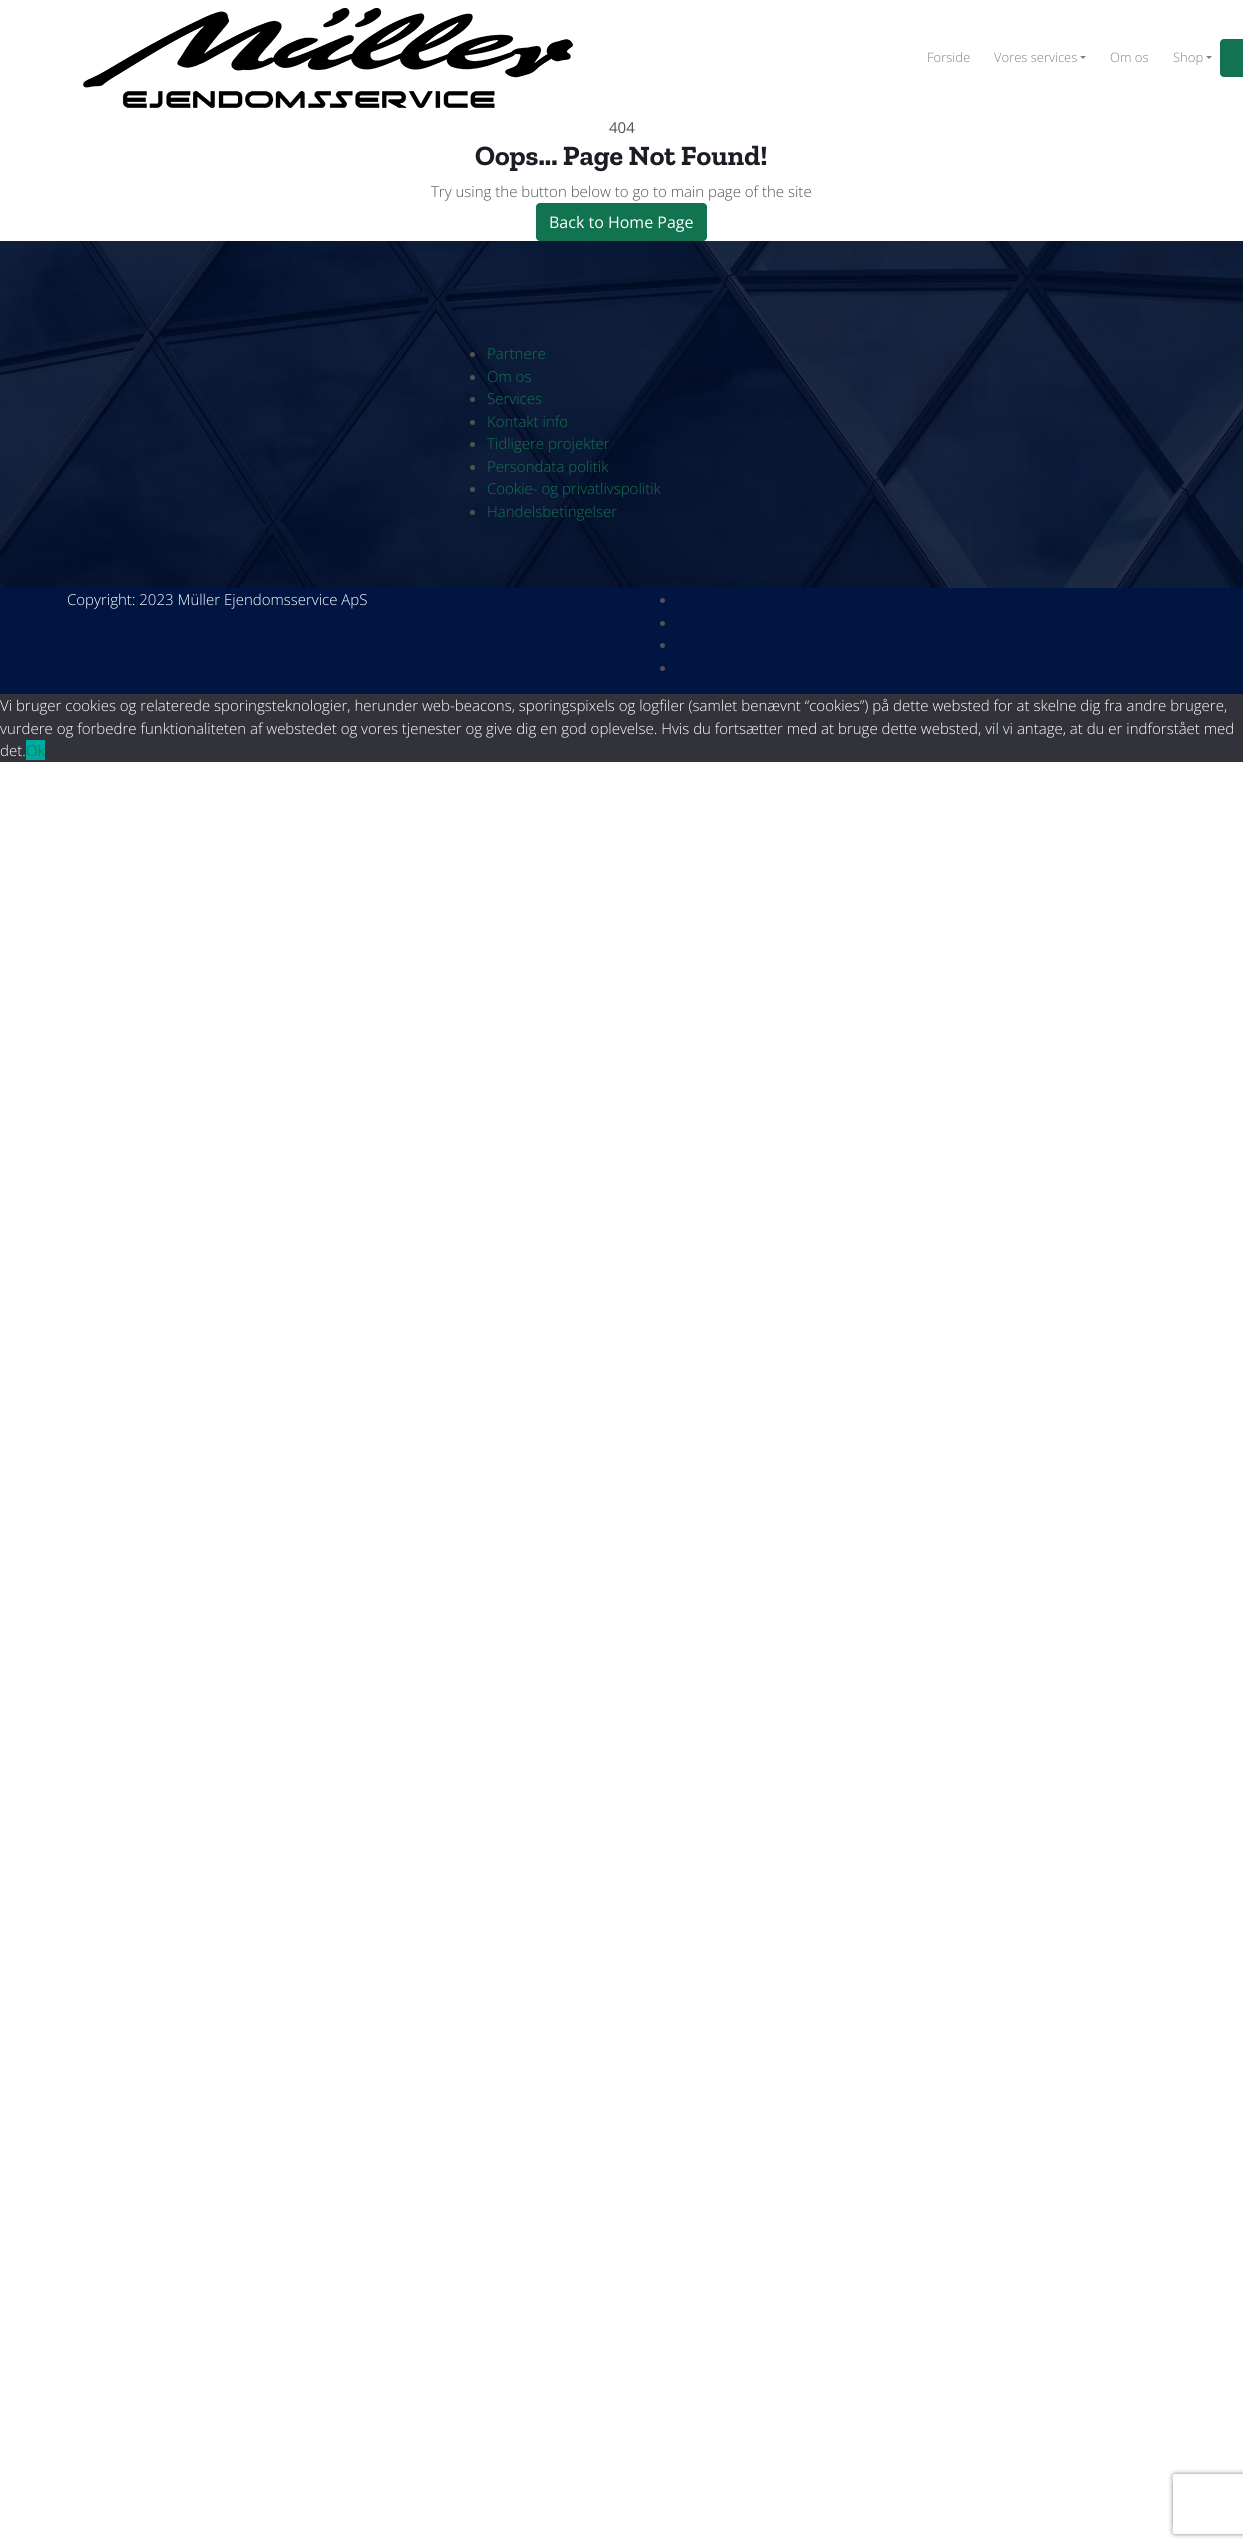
#include <cairo/cairo.h>
#include <math.h>
#include <stddef.h>


static void rounded_rect(cairo_t *cr, double x, double y, double w, double h, double r) {
  cairo_new_sub_path(cr);
  cairo_arc(cr, x + w - r, y + h - r, r, 0, M_PI / 2);
  cairo_arc(cr, x + r, y + h - r, r, M_PI / 2, M_PI);
  cairo_arc(cr, x + r, y + r, r, M_PI, 1.5 * M_PI);
  cairo_arc(cr, x + w - r, y + r, r, 1.5 * M_PI, 2 * M_PI);
  cairo_close_path(cr);
}

static void draw_shadow(cairo_t *cr, double x, double y, double w, double h, double r, double blur, double alpha) {
  cairo_push_group_with_content(cr, CAIRO_CONTENT_ALPHA);
  cairo_set_operator(cr, CAIRO_OPERATOR_SOURCE);
  for (int i = 15; i >= -15 && fmin(w, h) + blur * i / 3 > 0; i -= 2) {
    double e = blur * i / 6;
    cairo_set_source_rgba(cr, 0, 0, 0, alpha * erfc((i - 1) / 8.5) / 2);
    rounded_rect(cr, x - e, y - e, w + 2 * e, h + 2 * e, fmax(0, fmin(r + e + blur * .6, fmin(w, h) / 2 + e)));
    cairo_fill(cr);
  }
  cairo_pattern_t *soft = cairo_pop_group(cr);
  cairo_mask(cr, soft);
  cairo_pattern_destroy(soft);
}

static void draw_image(cairo_t *cr, const char *path, double x, double y, double w, double h) {
  cairo_surface_t *image = cairo_image_surface_create_from_png(path);
  cairo_save(cr);
  cairo_set_source_surface(cr, image, x, y);
  cairo_rectangle(cr, x, y, w, h);
  cairo_fill(cr);
  cairo_restore(cr);
  cairo_surface_destroy(image);
}

static void draw(cairo_t *cr) {
  cairo_set_source_rgb(cr, 1, 1, 1);
  cairo_paint(cr);
  draw_image(cr, "images/1.png", 83, 8, 490, 100);
  cairo_set_source_rgb(cr, 128 / 255.0, 128 / 255.0, 128 / 255.0);
  cairo_new_path(cr);
  cairo_move_to(cr, 1080, 56);
  cairo_line_to(cr, 1086, 56);
  cairo_line_to(cr, 1083, 59);
  cairo_close_path(cr);
  cairo_fill(cr);
  cairo_new_path(cr);
  cairo_move_to(cr, 1206, 56);
  cairo_line_to(cr, 1212, 56);
  cairo_line_to(cr, 1209, 59);
  cairo_close_path(cr);
  cairo_fill(cr);
  cairo_set_source_rgb(cr, 18 / 255.0, 115 / 255.0, 80 / 255.0);
  rounded_rect(cr, 1220, 39, 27, 38, 4);
  cairo_fill(cr);
  rounded_rect(cr, 536.5, 203.5, 170, 37, 3.5);
  cairo_fill_preserve(cr);
  cairo_set_line_width(cr, 1);
  cairo_stroke(cr);
  draw_image(cr, "images/2.png", 0, 241, 1243, 347);
  cairo_set_source_rgb(cr, 82 / 255.0, 82 / 255.0, 82 / 255.0);
  cairo_arc(cr, 472.5, 354.5, 2.5, 0, 2 * M_PI);
  cairo_fill(cr);
  cairo_arc(cr, 472.5, 377.5, 2.5, 0, 2 * M_PI);
  cairo_fill(cr);
  cairo_arc(cr, 472.5, 399.5, 2.5, 0, 2 * M_PI);
  cairo_fill(cr);
  cairo_arc(cr, 472.5, 422.5, 2.5, 0, 2 * M_PI);
  cairo_fill(cr);
  cairo_arc(cr, 472.5, 444.5, 2.5, 0, 2 * M_PI);
  cairo_fill(cr);
  cairo_arc(cr, 472.5, 467.5, 2.5, 0, 2 * M_PI);
  cairo_fill(cr);
  cairo_arc(cr, 472.5, 489.5, 2.5, 0, 2 * M_PI);
  cairo_fill(cr);
  cairo_arc(cr, 472.5, 512.5, 2.5, 0, 2 * M_PI);
  cairo_fill(cr);
  cairo_set_source_rgb(cr, 0, 21 / 255.0, 65 / 255.0);
  cairo_rectangle(cr, 0, 588, 1243, 106);
  cairo_fill(cr);
  cairo_set_source_rgb(cr, 82 / 255.0, 82 / 255.0, 82 / 255.0);
  cairo_arc(cr, 662.5, 600.5, 2.5, 0, 2 * M_PI);
  cairo_fill(cr);
  cairo_arc(cr, 662.5, 623.5, 2.5, 0, 2 * M_PI);
  cairo_fill(cr);
  cairo_arc(cr, 662.5, 645.5, 2.5, 0, 2 * M_PI);
  cairo_fill(cr);
  cairo_arc(cr, 662.5, 668.5, 2.5, 0, 2 * M_PI);
  cairo_fill(cr);
  cairo_set_source_rgb(cr, 50 / 255.0, 50 / 255.0, 58 / 255.0);
  cairo_rectangle(cr, 0, 694, 1243, 68);
  cairo_fill(cr);
  cairo_set_source_rgb(cr, 0, 169 / 255.0, 157 / 255.0);
  cairo_rectangle(cr, 26, 740, 19, 20);
  cairo_fill(cr);
  cairo_save(cr);
  cairo_set_fill_rule(cr, CAIRO_FILL_RULE_EVEN_ODD);
  cairo_new_path(cr);
  cairo_move_to(cr, 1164, 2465);
  cairo_line_to(cr, 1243, 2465);
  cairo_line_to(cr, 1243, 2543);
  cairo_line_to(cr, 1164, 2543);
  cairo_close_path(cr);
  cairo_move_to(cr, 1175, 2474);
  cairo_line_to(cr, 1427, 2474);
  cairo_curve_to(cr, 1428, 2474, 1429, 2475, 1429, 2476);
  cairo_line_to(cr, 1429, 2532);
  cairo_curve_to(cr, 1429, 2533, 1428, 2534, 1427, 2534);
  cairo_line_to(cr, 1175, 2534);
  cairo_curve_to(cr, 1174, 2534, 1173, 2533, 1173, 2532);
  cairo_line_to(cr, 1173, 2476);
  cairo_curve_to(cr, 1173, 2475, 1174, 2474, 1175, 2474);
  cairo_close_path(cr);
  cairo_clip(cr);
  cairo_set_source_rgb(cr, 128 / 255.0, 128 / 255.0, 128 / 255.0);
  draw_shadow(cr, 1173, 2474, 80, 60, 2, 2.5, 1);
  cairo_restore(cr);
  cairo_set_source_rgb(cr, 251 / 255.0, 251 / 255.0, 251 / 255.0);
  cairo_set_fill_rule(cr, CAIRO_FILL_RULE_EVEN_ODD);
  cairo_new_path(cr);
  cairo_move_to(cr, 1175, 2474);
  cairo_curve_to(cr, 1171, 2474, 1173, 2481, 1173, 2485);
  cairo_line_to(cr, 1173, 2523);
  cairo_curve_to(cr, 1173, 2527, 1171, 2534, 1175, 2534);
  cairo_line_to(cr, 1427, 2534);
  cairo_line_to(cr, 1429, 2533);
  cairo_line_to(cr, 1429, 2475);
  cairo_line_to(cr, 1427, 2474);
  cairo_close_path(cr);
  cairo_move_to(cr, 1174, 2475);
  cairo_line_to(cr, 1174, 2533);
  cairo_line_to(cr, 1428, 2533);
  cairo_line_to(cr, 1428, 2475);
  cairo_close_path(cr);
  cairo_fill(cr);
  cairo_select_font_face(cr, "Open Sans Light", CAIRO_FONT_SLANT_NORMAL, CAIRO_FONT_WEIGHT_NORMAL);
  cairo_set_font_size(cr, 13);
  cairo_set_source_rgb(cr, 128 / 255.0, 128 / 255.0, 128 / 255.0);
  cairo_move_to(cr, 927, 62);
  cairo_show_text(cr, "Forside");
  cairo_move_to(cr, 994, 62);
  cairo_show_text(cr, "Vores services");
  cairo_move_to(cr, 1110, 62);
  cairo_show_text(cr, "Om os");
  cairo_move_to(cr, 1173, 62);
  cairo_show_text(cr, "Shop");
  cairo_select_font_face(cr, "Open Sans", CAIRO_FONT_SLANT_NORMAL, CAIRO_FONT_WEIGHT_NORMAL);
  cairo_set_font_size(cr, 15);
  cairo_set_source_rgb(cr, 82 / 255.0, 82 / 255.0, 82 / 255.0);
  cairo_move_to(cr, 609, 133);
  cairo_show_text(cr, "404");
  cairo_select_font_face(cr, "Zilla Slab", CAIRO_FONT_SLANT_NORMAL, CAIRO_FONT_WEIGHT_BOLD);
  cairo_set_font_size(cr, 28);
  cairo_set_source_rgb(cr, 28 / 255.0, 28 / 255.0, 36 / 255.0);
  cairo_move_to(cr, 475, 165);
  cairo_show_text(cr, "Oops... Page Not Found!");
  cairo_select_font_face(cr, "Open Sans Light", CAIRO_FONT_SLANT_NORMAL, CAIRO_FONT_WEIGHT_NORMAL);
  cairo_set_font_size(cr, 15);
  cairo_set_source_rgb(cr, 82 / 255.0, 82 / 255.0, 82 / 255.0);
  cairo_move_to(cr, 431, 197);
  cairo_show_text(cr, "Try using the button below to go to main page of the site");
  cairo_select_font_face(cr, "Open Sans", CAIRO_FONT_SLANT_NORMAL, CAIRO_FONT_WEIGHT_NORMAL);
  cairo_set_font_size(cr, 16);
  cairo_set_source_rgb(cr, 1, 1, 1);
  cairo_move_to(cr, 549, 228);
  cairo_show_text(cr, "Back to Home Page");
  cairo_select_font_face(cr, "Open Sans Light", CAIRO_FONT_SLANT_NORMAL, CAIRO_FONT_WEIGHT_NORMAL);
  cairo_set_font_size(cr, 15);
  cairo_set_source_rgb(cr, 18 / 255.0, 115 / 255.0, 80 / 255.0);
  cairo_move_to(cr, 487, 359);
  cairo_show_text(cr, "Partnere");
  cairo_move_to(cr, 487, 382);
  cairo_show_text(cr, "Om os");
  cairo_move_to(cr, 487, 404);
  cairo_show_text(cr, "Services");
  cairo_move_to(cr, 487, 427);
  cairo_show_text(cr, "Kontakt info");
  cairo_move_to(cr, 487, 449);
  cairo_show_text(cr, "Tidligere projekter");
  cairo_move_to(cr, 487, 472);
  cairo_show_text(cr, "Persondata politik");
  cairo_move_to(cr, 487, 494);
  cairo_show_text(cr, "Cookie- og privatlivspolitik");
  cairo_move_to(cr, 487, 517);
  cairo_show_text(cr, "Handelsbetingelser");
  cairo_set_source_rgb(cr, 1, 1, 1);
  cairo_move_to(cr, 67, 605);
  cairo_show_text(cr, "Copyright: 2023 Müller Ejendomsservice ApS");
  cairo_move_to(cr, 0, 711);
  cairo_show_text(cr, "Vi bruger cookies og relaterede sporingsteknologier, herunder web-beacons, sporingspixels og logfiler (samlet benævnt “cookies”) på dette websted for at skelne dig fra andre brugere,");
  cairo_move_to(cr, 0, 734);
  cairo_show_text(cr, "vurdere og forbedre funktionaliteten af webstedet og vores tjenester og give dig en god oplevelse. Hvis du fortsætter med at bruge dette websted, vil vi antage, at du er indforstået med");
  cairo_move_to(cr, 0, 756);
  cairo_show_text(cr, "det.");
  cairo_set_source_rgb(cr, 18 / 255.0, 115 / 255.0, 80 / 255.0);
  cairo_move_to(cr, 26, 756);
  cairo_show_text(cr, "Ok");
}

int main(void) {
  cairo_surface_t *surface = cairo_image_surface_create(CAIRO_FORMAT_RGB24, 1243, 2548);
  cairo_t *cr = cairo_create(surface);
  cairo_font_options_t *options = cairo_font_options_create();
  cairo_font_options_set_hint_metrics(options, CAIRO_HINT_METRICS_OFF);
  cairo_font_options_set_hint_style(options, CAIRO_HINT_STYLE_NONE);
  cairo_set_font_options(cr, options);
  cairo_set_miter_limit(cr, 4);
  draw(cr);
  cairo_surface_write_to_png(surface, "out.png");
  cairo_font_options_destroy(options);
  cairo_destroy(cr);
  cairo_surface_destroy(surface);
  return 0;
}
